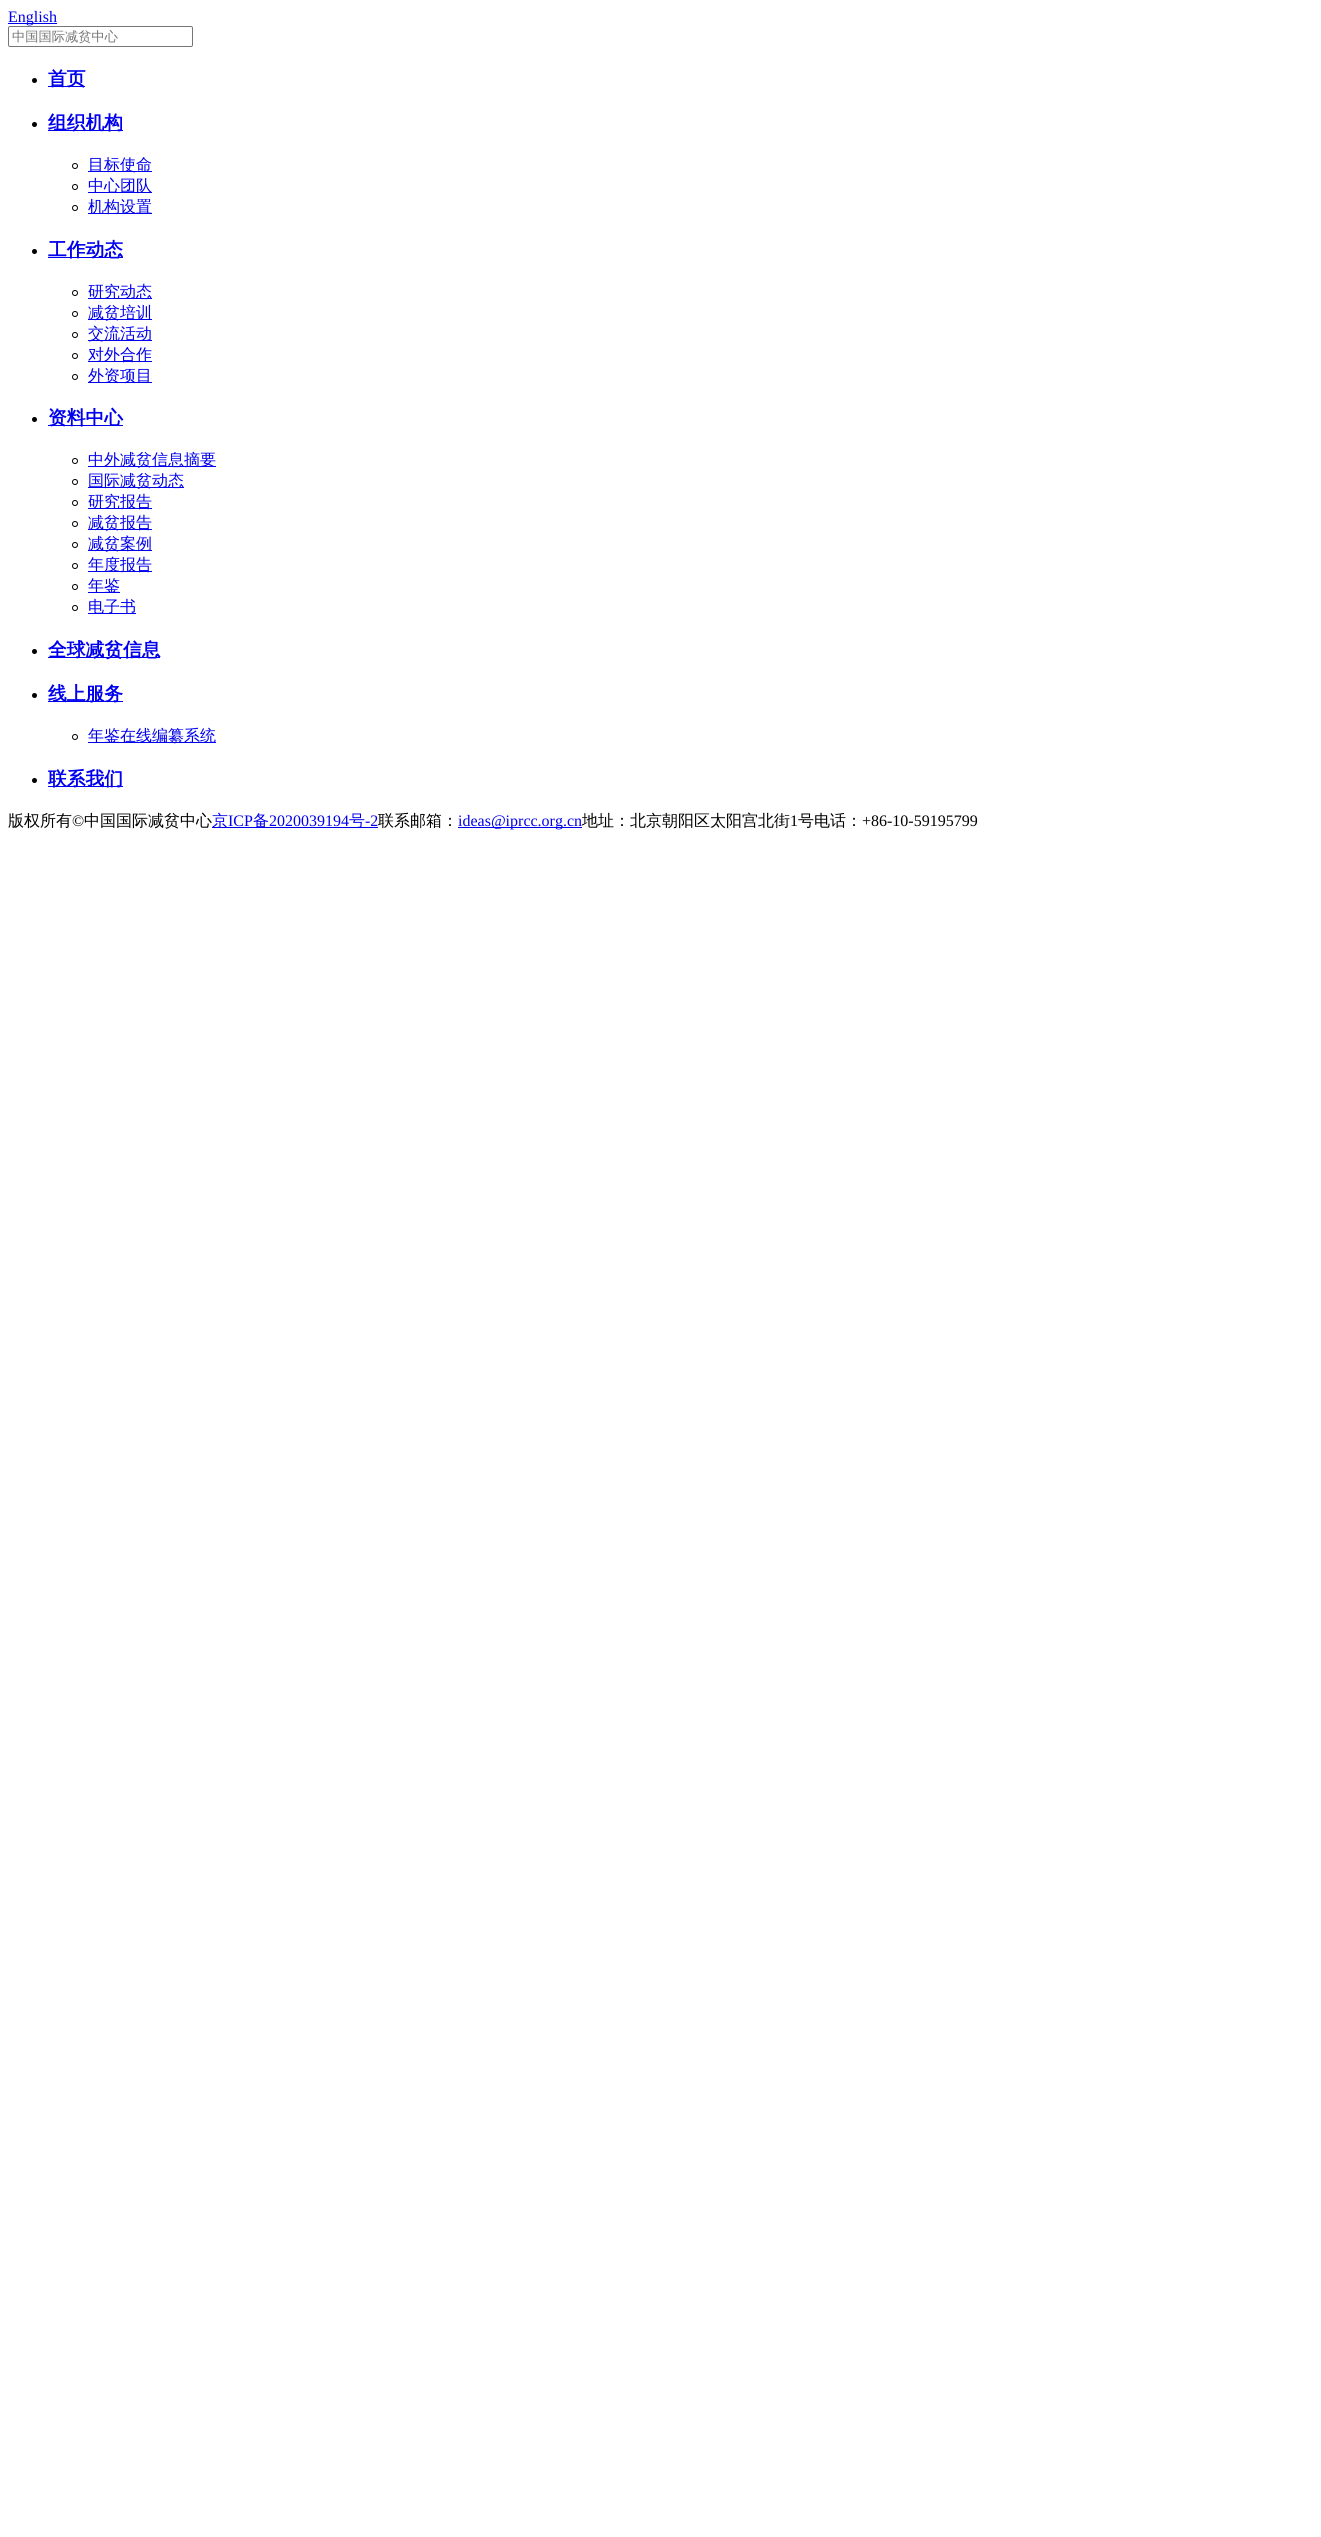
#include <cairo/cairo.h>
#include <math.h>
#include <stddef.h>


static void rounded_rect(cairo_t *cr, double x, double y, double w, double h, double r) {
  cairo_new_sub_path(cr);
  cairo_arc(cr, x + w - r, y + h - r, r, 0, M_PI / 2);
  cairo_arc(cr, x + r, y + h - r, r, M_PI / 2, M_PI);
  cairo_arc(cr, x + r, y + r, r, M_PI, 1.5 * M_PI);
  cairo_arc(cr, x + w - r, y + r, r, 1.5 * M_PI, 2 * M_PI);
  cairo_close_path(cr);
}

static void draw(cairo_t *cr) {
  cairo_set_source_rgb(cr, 1, 1, 1);
  cairo_paint(cr);
  cairo_set_source_rgb(cr, 0, 0, 238 / 255.0);
  cairo_rectangle(cr, 8, 23, 49, 1);
  cairo_fill(cr);
  rounded_rect(cr, 8.5, 26.5, 184, 20, 1.5);
  cairo_set_source_rgb(cr, 118 / 255.0, 118 / 255.0, 118 / 255.0);
  cairo_set_line_width(cr, 1);
  cairo_stroke(cr);
  cairo_set_source_rgb(cr, 0, 0, 0);
  cairo_arc(cr, 34.5, 80.5, 2.5, 0, 2 * M_PI);
  cairo_fill(cr);
  cairo_set_source_rgb(cr, 0, 0, 238 / 255.0);
  cairo_rectangle(cr, 48, 86, 37, 1);
  cairo_fill(cr);
  cairo_set_source_rgb(cr, 0, 0, 0);
  cairo_arc(cr, 34.5, 124.5, 2.5, 0, 2 * M_PI);
  cairo_fill(cr);
  cairo_set_source_rgb(cr, 0, 0, 238 / 255.0);
  cairo_rectangle(cr, 48, 130, 75, 1);
  cairo_fill(cr);
  cairo_arc(cr, 75, 166, 2.5, 0, 2 * M_PI);
  cairo_set_source_rgb(cr, 0, 0, 0);
  cairo_stroke(cr);
  cairo_set_source_rgb(cr, 0, 0, 238 / 255.0);
  cairo_rectangle(cr, 88, 171, 64, 1);
  cairo_fill(cr);
  cairo_arc(cr, 75, 187, 2.5, 0, 2 * M_PI);
  cairo_set_source_rgb(cr, 0, 0, 0);
  cairo_stroke(cr);
  cairo_set_source_rgb(cr, 0, 0, 238 / 255.0);
  cairo_rectangle(cr, 88, 192, 64, 1);
  cairo_fill(cr);
  cairo_arc(cr, 75, 208, 2.5, 0, 2 * M_PI);
  cairo_set_source_rgb(cr, 0, 0, 0);
  cairo_stroke(cr);
  cairo_set_source_rgb(cr, 0, 0, 238 / 255.0);
  cairo_rectangle(cr, 88, 213, 64, 1);
  cairo_fill(cr);
  cairo_set_source_rgb(cr, 0, 0, 0);
  cairo_arc(cr, 34.5, 251.5, 2.5, 0, 2 * M_PI);
  cairo_fill(cr);
  cairo_set_source_rgb(cr, 0, 0, 238 / 255.0);
  cairo_rectangle(cr, 48, 257, 75, 1);
  cairo_fill(cr);
  cairo_arc(cr, 75, 293, 2.5, 0, 2 * M_PI);
  cairo_set_source_rgb(cr, 0, 0, 0);
  cairo_stroke(cr);
  cairo_set_source_rgb(cr, 0, 0, 238 / 255.0);
  cairo_rectangle(cr, 88, 298, 64, 1);
  cairo_fill(cr);
  cairo_arc(cr, 75, 314, 2.5, 0, 2 * M_PI);
  cairo_set_source_rgb(cr, 0, 0, 0);
  cairo_stroke(cr);
  cairo_set_source_rgb(cr, 0, 0, 238 / 255.0);
  cairo_rectangle(cr, 88, 319, 64, 1);
  cairo_fill(cr);
  cairo_arc(cr, 75, 335, 2.5, 0, 2 * M_PI);
  cairo_set_source_rgb(cr, 0, 0, 0);
  cairo_stroke(cr);
  cairo_set_source_rgb(cr, 0, 0, 238 / 255.0);
  cairo_rectangle(cr, 88, 340, 64, 1);
  cairo_fill(cr);
  cairo_arc(cr, 75, 356, 2.5, 0, 2 * M_PI);
  cairo_set_source_rgb(cr, 0, 0, 0);
  cairo_stroke(cr);
  cairo_set_source_rgb(cr, 0, 0, 238 / 255.0);
  cairo_rectangle(cr, 88, 361, 64, 1);
  cairo_fill(cr);
  cairo_arc(cr, 75, 377, 2.5, 0, 2 * M_PI);
  cairo_set_source_rgb(cr, 0, 0, 0);
  cairo_stroke(cr);
  cairo_set_source_rgb(cr, 0, 0, 238 / 255.0);
  cairo_rectangle(cr, 88, 382, 64, 1);
  cairo_fill(cr);
  cairo_set_source_rgb(cr, 0, 0, 0);
  cairo_arc(cr, 34.5, 419.5, 2.5, 0, 2 * M_PI);
  cairo_fill(cr);
  cairo_set_source_rgb(cr, 0, 0, 238 / 255.0);
  cairo_rectangle(cr, 48, 425, 75, 1);
  cairo_fill(cr);
  cairo_arc(cr, 75, 461, 2.5, 0, 2 * M_PI);
  cairo_set_source_rgb(cr, 0, 0, 0);
  cairo_stroke(cr);
  cairo_set_source_rgb(cr, 0, 0, 238 / 255.0);
  cairo_rectangle(cr, 88, 466, 128, 1);
  cairo_fill(cr);
  cairo_arc(cr, 75, 482, 2.5, 0, 2 * M_PI);
  cairo_set_source_rgb(cr, 0, 0, 0);
  cairo_stroke(cr);
  cairo_set_source_rgb(cr, 0, 0, 238 / 255.0);
  cairo_rectangle(cr, 88, 487, 96, 1);
  cairo_fill(cr);
  cairo_arc(cr, 75, 503, 2.5, 0, 2 * M_PI);
  cairo_set_source_rgb(cr, 0, 0, 0);
  cairo_stroke(cr);
  cairo_set_source_rgb(cr, 0, 0, 238 / 255.0);
  cairo_rectangle(cr, 88, 508, 64, 1);
  cairo_fill(cr);
  cairo_arc(cr, 75, 524, 2.5, 0, 2 * M_PI);
  cairo_set_source_rgb(cr, 0, 0, 0);
  cairo_stroke(cr);
  cairo_set_source_rgb(cr, 0, 0, 238 / 255.0);
  cairo_rectangle(cr, 88, 529, 64, 1);
  cairo_fill(cr);
  cairo_arc(cr, 75, 545, 2.5, 0, 2 * M_PI);
  cairo_set_source_rgb(cr, 0, 0, 0);
  cairo_stroke(cr);
  cairo_set_source_rgb(cr, 0, 0, 238 / 255.0);
  cairo_rectangle(cr, 88, 550, 64, 1);
  cairo_fill(cr);
  cairo_arc(cr, 75, 566, 2.5, 0, 2 * M_PI);
  cairo_set_source_rgb(cr, 0, 0, 0);
  cairo_stroke(cr);
  cairo_set_source_rgb(cr, 0, 0, 238 / 255.0);
  cairo_rectangle(cr, 88, 571, 64, 1);
  cairo_fill(cr);
  cairo_arc(cr, 75, 587, 2.5, 0, 2 * M_PI);
  cairo_set_source_rgb(cr, 0, 0, 0);
  cairo_stroke(cr);
  cairo_set_source_rgb(cr, 0, 0, 238 / 255.0);
  cairo_rectangle(cr, 88, 592, 32, 1);
  cairo_fill(cr);
  cairo_arc(cr, 75, 608, 2.5, 0, 2 * M_PI);
  cairo_set_source_rgb(cr, 0, 0, 0);
  cairo_stroke(cr);
  cairo_set_source_rgb(cr, 0, 0, 238 / 255.0);
  cairo_rectangle(cr, 88, 613, 48, 1);
  cairo_fill(cr);
  cairo_set_source_rgb(cr, 0, 0, 0);
  cairo_arc(cr, 34.5, 651.5, 2.5, 0, 2 * M_PI);
  cairo_fill(cr);
  cairo_set_source_rgb(cr, 0, 0, 238 / 255.0);
  cairo_rectangle(cr, 48, 657, 112, 1);
  cairo_fill(cr);
  cairo_set_source_rgb(cr, 0, 0, 0);
  cairo_arc(cr, 34.5, 695.5, 2.5, 0, 2 * M_PI);
  cairo_fill(cr);
  cairo_set_source_rgb(cr, 0, 0, 238 / 255.0);
  cairo_rectangle(cr, 48, 701, 75, 1);
  cairo_fill(cr);
  cairo_arc(cr, 75, 737, 2.5, 0, 2 * M_PI);
  cairo_set_source_rgb(cr, 0, 0, 0);
  cairo_stroke(cr);
  cairo_set_source_rgb(cr, 0, 0, 238 / 255.0);
  cairo_rectangle(cr, 88, 742, 128, 1);
  cairo_fill(cr);
  cairo_set_source_rgb(cr, 0, 0, 0);
  cairo_arc(cr, 34.5, 780.5, 2.5, 0, 2 * M_PI);
  cairo_fill(cr);
  cairo_set_source_rgb(cr, 0, 0, 238 / 255.0);
  cairo_rectangle(cr, 48, 786, 75, 1);
  cairo_fill(cr);
  cairo_rectangle(cr, 212, 827, 166, 1);
  cairo_fill(cr);
  cairo_rectangle(cr, 458, 827, 124, 1);
  cairo_fill(cr);
  cairo_select_font_face(cr, "Liberation Serif", CAIRO_FONT_SLANT_NORMAL, CAIRO_FONT_WEIGHT_NORMAL);
  cairo_set_font_size(cr, 16);
  cairo_move_to(cr, 8, 22);
  cairo_show_text(cr, "English");
  cairo_select_font_face(cr, "WenQuanYi Zen Hei Medium", CAIRO_FONT_SLANT_NORMAL, CAIRO_FONT_WEIGHT_NORMAL);
  cairo_set_font_size(cr, 13.25);
  cairo_set_source_rgb(cr, 117 / 255.0, 117 / 255.0, 117 / 255.0);
  cairo_move_to(cr, 12, 41);
  cairo_show_text(cr, "中国国际减贫中心");
  cairo_select_font_face(cr, "WenQuanYi Zen Hei", CAIRO_FONT_SLANT_NORMAL, CAIRO_FONT_WEIGHT_BOLD);
  cairo_set_font_size(cr, 18.75);
  cairo_set_source_rgb(cr, 0, 0, 238 / 255.0);
  cairo_move_to(cr, 48, 85);
  cairo_show_text(cr, "首页");
  cairo_move_to(cr, 48, 129);
  cairo_show_text(cr, "组织机构");
  cairo_select_font_face(cr, "WenQuanYi Zen Hei Medium", CAIRO_FONT_SLANT_NORMAL, CAIRO_FONT_WEIGHT_NORMAL);
  cairo_set_font_size(cr, 16);
  cairo_move_to(cr, 88, 170);
  cairo_show_text(cr, "目标使命");
  cairo_move_to(cr, 88, 191);
  cairo_show_text(cr, "中心团队");
  cairo_move_to(cr, 88, 212);
  cairo_show_text(cr, "机构设置");
  cairo_select_font_face(cr, "WenQuanYi Zen Hei", CAIRO_FONT_SLANT_NORMAL, CAIRO_FONT_WEIGHT_BOLD);
  cairo_set_font_size(cr, 18.75);
  cairo_move_to(cr, 48, 256);
  cairo_show_text(cr, "工作动态");
  cairo_select_font_face(cr, "WenQuanYi Zen Hei Medium", CAIRO_FONT_SLANT_NORMAL, CAIRO_FONT_WEIGHT_NORMAL);
  cairo_set_font_size(cr, 16);
  cairo_move_to(cr, 88, 297);
  cairo_show_text(cr, "研究动态");
  cairo_move_to(cr, 88, 318);
  cairo_show_text(cr, "减贫培训");
  cairo_move_to(cr, 88, 339);
  cairo_show_text(cr, "交流活动");
  cairo_move_to(cr, 88, 360);
  cairo_show_text(cr, "对外合作");
  cairo_move_to(cr, 88, 381);
  cairo_show_text(cr, "外资项目");
  cairo_select_font_face(cr, "WenQuanYi Zen Hei", CAIRO_FONT_SLANT_NORMAL, CAIRO_FONT_WEIGHT_BOLD);
  cairo_set_font_size(cr, 18.75);
  cairo_move_to(cr, 48, 424);
  cairo_show_text(cr, "资料中心");
  cairo_select_font_face(cr, "WenQuanYi Zen Hei Medium", CAIRO_FONT_SLANT_NORMAL, CAIRO_FONT_WEIGHT_NORMAL);
  cairo_set_font_size(cr, 16);
  cairo_move_to(cr, 88, 465);
  cairo_show_text(cr, "中外减贫信息摘要");
  cairo_move_to(cr, 88, 486);
  cairo_show_text(cr, "国际减贫动态");
  cairo_move_to(cr, 88, 507);
  cairo_show_text(cr, "研究报告");
  cairo_move_to(cr, 88, 528);
  cairo_show_text(cr, "减贫报告");
  cairo_move_to(cr, 88, 549);
  cairo_show_text(cr, "减贫案例");
  cairo_move_to(cr, 88, 570);
  cairo_show_text(cr, "年度报告");
  cairo_move_to(cr, 88, 591);
  cairo_show_text(cr, "年鉴");
  cairo_move_to(cr, 88, 612);
  cairo_show_text(cr, "电子书");
  cairo_select_font_face(cr, "WenQuanYi Zen Hei", CAIRO_FONT_SLANT_NORMAL, CAIRO_FONT_WEIGHT_BOLD);
  cairo_set_font_size(cr, 18.75);
  cairo_move_to(cr, 48, 656);
  cairo_show_text(cr, "全球减贫信息");
  cairo_move_to(cr, 48, 700);
  cairo_show_text(cr, "线上服务");
  cairo_select_font_face(cr, "WenQuanYi Zen Hei Medium", CAIRO_FONT_SLANT_NORMAL, CAIRO_FONT_WEIGHT_NORMAL);
  cairo_set_font_size(cr, 16);
  cairo_move_to(cr, 88, 741);
  cairo_show_text(cr, "年鉴在线编纂系统");
  cairo_select_font_face(cr, "WenQuanYi Zen Hei", CAIRO_FONT_SLANT_NORMAL, CAIRO_FONT_WEIGHT_BOLD);
  cairo_set_font_size(cr, 18.75);
  cairo_move_to(cr, 48, 785);
  cairo_show_text(cr, "联系我们");
  cairo_select_font_face(cr, "WenQuanYi Zen Hei Medium", CAIRO_FONT_SLANT_NORMAL, CAIRO_FONT_WEIGHT_NORMAL);
  cairo_set_font_size(cr, 16);
  cairo_set_source_rgb(cr, 0, 0, 0);
  cairo_move_to(cr, 8, 826);
  cairo_show_text(cr, "版权所有");
  cairo_select_font_face(cr, "Liberation Serif", CAIRO_FONT_SLANT_NORMAL, CAIRO_FONT_WEIGHT_NORMAL);
  cairo_move_to(cr, 72, 826);
  cairo_show_text(cr, "©");
  cairo_select_font_face(cr, "WenQuanYi Zen Hei Medium", CAIRO_FONT_SLANT_NORMAL, CAIRO_FONT_WEIGHT_NORMAL);
  cairo_move_to(cr, 84, 826);
  cairo_show_text(cr, "中国国际减贫中心");
  cairo_set_source_rgb(cr, 0, 0, 238 / 255.0);
  cairo_move_to(cr, 212, 826);
  cairo_show_text(cr, "京");
  cairo_select_font_face(cr, "Liberation Serif", CAIRO_FONT_SLANT_NORMAL, CAIRO_FONT_WEIGHT_NORMAL);
  cairo_move_to(cr, 228, 826);
  cairo_show_text(cr, "ICP");
  cairo_select_font_face(cr, "WenQuanYi Zen Hei Medium", CAIRO_FONT_SLANT_NORMAL, CAIRO_FONT_WEIGHT_NORMAL);
  cairo_move_to(cr, 253, 826);
  cairo_show_text(cr, "备");
  cairo_select_font_face(cr, "Liberation Serif", CAIRO_FONT_SLANT_NORMAL, CAIRO_FONT_WEIGHT_NORMAL);
  cairo_move_to(cr, 269, 826);
  cairo_show_text(cr, "2020039194");
  cairo_select_font_face(cr, "WenQuanYi Zen Hei Medium", CAIRO_FONT_SLANT_NORMAL, CAIRO_FONT_WEIGHT_NORMAL);
  cairo_move_to(cr, 349, 826);
  cairo_show_text(cr, "号");
  cairo_select_font_face(cr, "Liberation Serif", CAIRO_FONT_SLANT_NORMAL, CAIRO_FONT_WEIGHT_NORMAL);
  cairo_move_to(cr, 365, 826);
  cairo_show_text(cr, "-2");
  cairo_select_font_face(cr, "WenQuanYi Zen Hei Medium", CAIRO_FONT_SLANT_NORMAL, CAIRO_FONT_WEIGHT_NORMAL);
  cairo_set_source_rgb(cr, 0, 0, 0);
  cairo_move_to(cr, 378, 826);
  cairo_show_text(cr, "联系邮箱：");
  cairo_select_font_face(cr, "Liberation Serif", CAIRO_FONT_SLANT_NORMAL, CAIRO_FONT_WEIGHT_NORMAL);
  cairo_set_source_rgb(cr, 0, 0, 238 / 255.0);
  cairo_move_to(cr, 458, 826);
  cairo_show_text(cr, "ideas@iprcc.org.cn");
  cairo_select_font_face(cr, "WenQuanYi Zen Hei Medium", CAIRO_FONT_SLANT_NORMAL, CAIRO_FONT_WEIGHT_NORMAL);
  cairo_set_source_rgb(cr, 0, 0, 0);
  cairo_move_to(cr, 582, 826);
  cairo_show_text(cr, "地址：北京朝阳区太阳宫北街");
  cairo_select_font_face(cr, "Liberation Serif", CAIRO_FONT_SLANT_NORMAL, CAIRO_FONT_WEIGHT_NORMAL);
  cairo_move_to(cr, 790, 826);
  cairo_show_text(cr, "1");
  cairo_select_font_face(cr, "WenQuanYi Zen Hei Medium", CAIRO_FONT_SLANT_NORMAL, CAIRO_FONT_WEIGHT_NORMAL);
  cairo_move_to(cr, 798, 826);
  cairo_show_text(cr, "号电话：");
  cairo_select_font_face(cr, "Liberation Serif", CAIRO_FONT_SLANT_NORMAL, CAIRO_FONT_WEIGHT_NORMAL);
  cairo_move_to(cr, 862, 826);
  cairo_show_text(cr, "+86-10-59195799");
}

int main(void) {
  cairo_surface_t *surface = cairo_image_surface_create(CAIRO_FORMAT_RGB24, 1321, 2537);
  cairo_t *cr = cairo_create(surface);
  cairo_font_options_t *options = cairo_font_options_create();
  cairo_font_options_set_hint_metrics(options, CAIRO_HINT_METRICS_OFF);
  cairo_font_options_set_hint_style(options, CAIRO_HINT_STYLE_NONE);
  cairo_set_font_options(cr, options);
  cairo_set_miter_limit(cr, 4);
  draw(cr);
  cairo_surface_write_to_png(surface, "out.png");
  cairo_font_options_destroy(options);
  cairo_destroy(cr);
  cairo_surface_destroy(surface);
  return 0;
}
